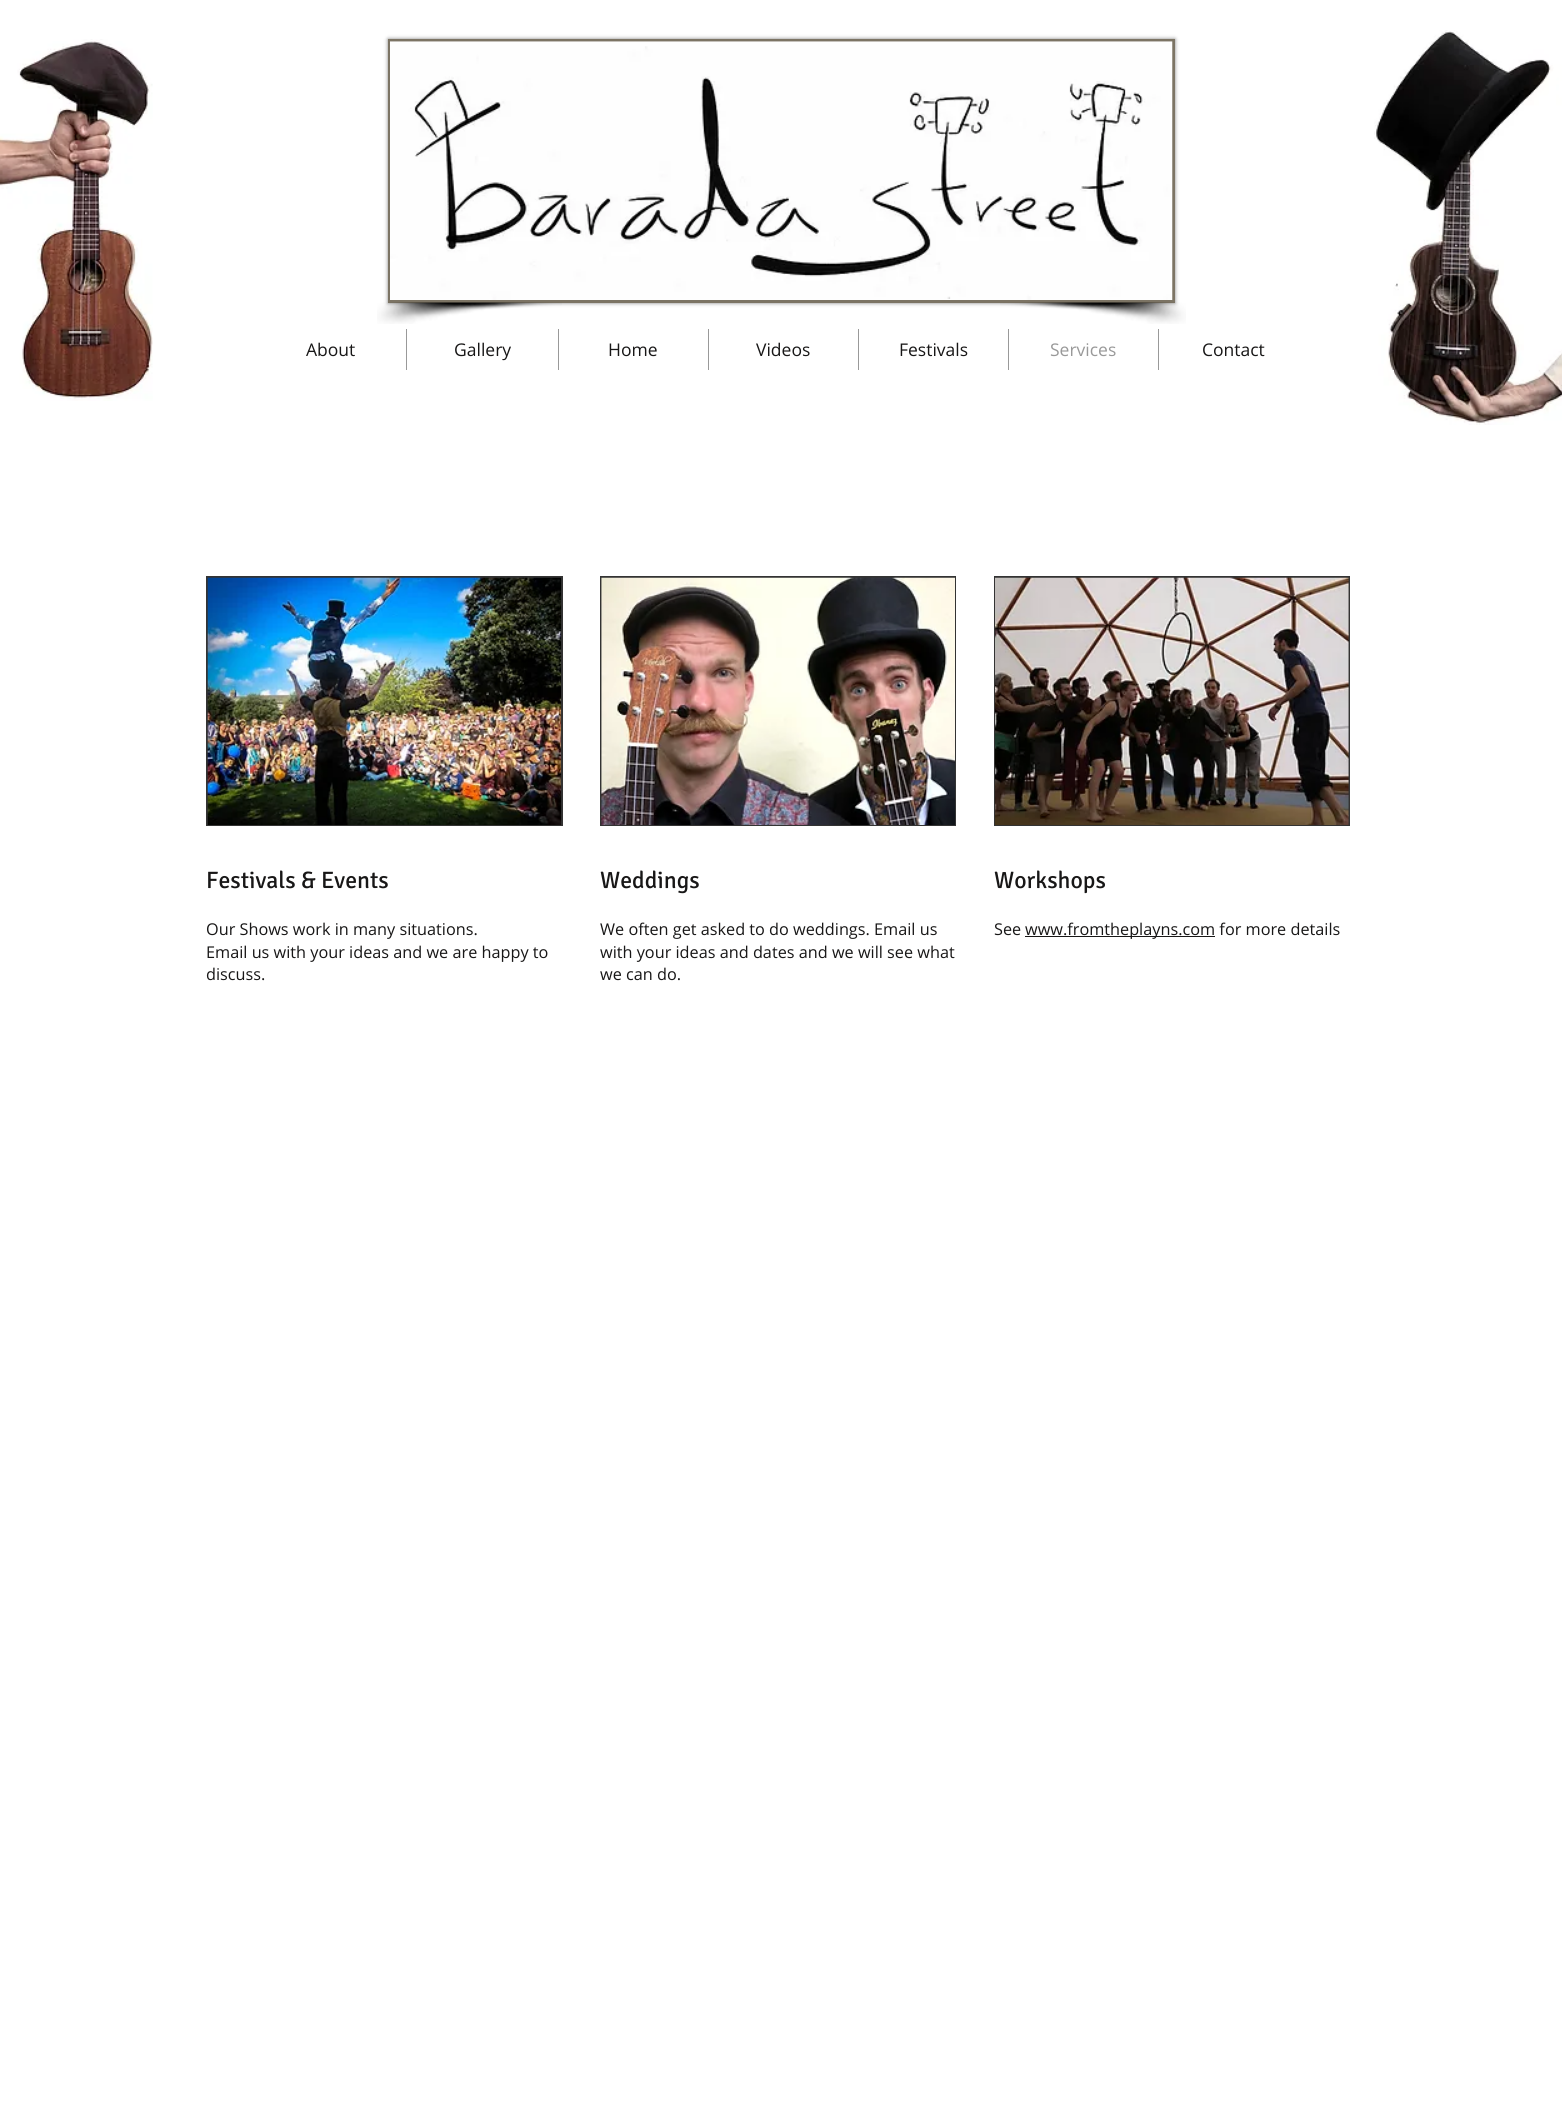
#include <cairo/cairo.h>
#include <math.h>
#include <stddef.h>


static void rounded_rect(cairo_t *cr, double x, double y, double w, double h, double r) {
  cairo_new_sub_path(cr);
  cairo_arc(cr, x + w - r, y + h - r, r, 0, M_PI / 2);
  cairo_arc(cr, x + r, y + h - r, r, M_PI / 2, M_PI);
  cairo_arc(cr, x + r, y + r, r, M_PI, 1.5 * M_PI);
  cairo_arc(cr, x + w - r, y + r, r, 1.5 * M_PI, 2 * M_PI);
  cairo_close_path(cr);
}

static void draw_shadow(cairo_t *cr, double x, double y, double w, double h, double r, double blur, double alpha) {
  cairo_push_group_with_content(cr, CAIRO_CONTENT_ALPHA);
  cairo_set_operator(cr, CAIRO_OPERATOR_SOURCE);
  for (int i = 15; i >= -15 && fmin(w, h) + blur * i / 3 > 0; i -= 2) {
    double e = blur * i / 6;
    cairo_set_source_rgba(cr, 0, 0, 0, alpha * erfc((i - 1) / 8.5) / 2);
    rounded_rect(cr, x - e, y - e, w + 2 * e, h + 2 * e, fmax(0, fmin(r + e + blur * .6, fmin(w, h) / 2 + e)));
    cairo_fill(cr);
  }
  cairo_pattern_t *soft = cairo_pop_group(cr);
  cairo_mask(cr, soft);
  cairo_pattern_destroy(soft);
}

static void draw_image(cairo_t *cr, const char *path, double x, double y, double w, double h) {
  cairo_surface_t *image = cairo_image_surface_create_from_png(path);
  cairo_save(cr);
  cairo_set_source_surface(cr, image, x, y);
  cairo_rectangle(cr, x, y, w, h);
  cairo_fill(cr);
  cairo_restore(cr);
  cairo_surface_destroy(image);
}

static void draw(cairo_t *cr) {
  cairo_set_source_rgb(cr, 1, 1, 1);
  cairo_paint(cr);
  draw_image(cr, "images/1.png", 0, 39, 153, 362);
  cairo_set_source_rgb(cr, 0, 0, 0);
  draw_shadow(cr, 388, 39, 787, 264, 0, 2, 0.5);
  cairo_set_source_rgb(cr, 124 / 255.0, 116 / 255.0, 100 / 255.0);
  cairo_rectangle(cr, 388, 39, 787, 264);
  cairo_fill(cr);
  draw_image(cr, "images/2.png", 390, 41, 783, 259);
  draw_image(cr, "images/3.png", 377, 302, 185, 22);
  draw_image(cr, "images/4.png", 1000, 302, 186, 22);
  draw_image(cr, "images/5.png", 1374, 30, 188, 395);
  cairo_set_source_rgb(cr, 153 / 255.0, 153 / 255.0, 153 / 255.0);
  cairo_rectangle(cr, 406, 329, 1, 41);
  cairo_fill(cr);
  cairo_rectangle(cr, 558, 329, 1, 41);
  cairo_fill(cr);
  cairo_rectangle(cr, 708, 329, 1, 41);
  cairo_fill(cr);
  cairo_rectangle(cr, 858, 329, 1, 41);
  cairo_fill(cr);
  cairo_rectangle(cr, 1008, 329, 1, 41);
  cairo_fill(cr);
  cairo_rectangle(cr, 1158, 329, 1, 41);
  cairo_fill(cr);
  cairo_set_source_rgba(cr, 1, 1, 1, 0.85);
  cairo_rectangle(cr, 1391, 370, 3, 8);
  cairo_fill(cr);
  cairo_set_source_rgb(cr, 51 / 255.0, 51 / 255.0, 51 / 255.0);
  cairo_rectangle(cr, 206, 576, 357, 250);
  cairo_fill(cr);
  draw_image(cr, "images/6.png", 207, 577, 355, 248);
  cairo_rectangle(cr, 600, 576, 356, 250);
  cairo_fill(cr);
  draw_image(cr, "images/7.png", 601, 577, 354, 248);
  cairo_rectangle(cr, 994, 576, 356, 250);
  cairo_fill(cr);
  draw_image(cr, "images/8.png", 995, 577, 354, 248);
  cairo_set_source_rgb(cr, 24 / 255.0, 23 / 255.0, 23 / 255.0);
  cairo_rectangle(cr, 1025, 936, 190, 1);
  cairo_fill(cr);
  cairo_select_font_face(cr, "Open Sans", CAIRO_FONT_SLANT_NORMAL, CAIRO_FONT_WEIGHT_NORMAL);
  cairo_set_font_size(cr, 17.5);
  cairo_move_to(cr, 306, 356);
  cairo_show_text(cr, "About");
  cairo_move_to(cr, 454, 356);
  cairo_show_text(cr, "Gallery");
  cairo_move_to(cr, 608, 356);
  cairo_show_text(cr, "Home");
  cairo_move_to(cr, 756, 356);
  cairo_show_text(cr, "Videos");
  cairo_move_to(cr, 899, 356);
  cairo_show_text(cr, "Festivals");
  cairo_set_source_rgb(cr, 153 / 255.0, 153 / 255.0, 153 / 255.0);
  cairo_move_to(cr, 1050, 356);
  cairo_show_text(cr, "Services");
  cairo_set_source_rgb(cr, 24 / 255.0, 23 / 255.0, 23 / 255.0);
  cairo_move_to(cr, 1202, 356);
  cairo_show_text(cr, "Contact");
  cairo_select_font_face(cr, "Signika", CAIRO_FONT_SLANT_NORMAL, CAIRO_FONT_WEIGHT_NORMAL);
  cairo_set_font_size(cr, 23.75);
  cairo_move_to(cr, 206, 888);
  cairo_show_text(cr, "Festivals & Events");
  cairo_select_font_face(cr, "Open Sans", CAIRO_FONT_SLANT_NORMAL, CAIRO_FONT_WEIGHT_NORMAL);
  cairo_set_font_size(cr, 16.25);
  cairo_move_to(cr, 206, 935);
  cairo_show_text(cr, "Our Shows work in many situations.");
  cairo_move_to(cr, 206, 958);
  cairo_show_text(cr, "Email us with your ideas and we are happy to");
  cairo_move_to(cr, 206, 980);
  cairo_show_text(cr, "discuss.");
  cairo_select_font_face(cr, "Signika", CAIRO_FONT_SLANT_NORMAL, CAIRO_FONT_WEIGHT_NORMAL);
  cairo_set_font_size(cr, 23.75);
  cairo_move_to(cr, 600, 888);
  cairo_show_text(cr, "Weddings");
  cairo_select_font_face(cr, "Open Sans", CAIRO_FONT_SLANT_NORMAL, CAIRO_FONT_WEIGHT_NORMAL);
  cairo_set_font_size(cr, 16.25);
  cairo_move_to(cr, 600, 935);
  cairo_show_text(cr, "We often get asked to do weddings. Email us");
  cairo_move_to(cr, 600, 958);
  cairo_show_text(cr, "with your ideas and dates and we will see what");
  cairo_move_to(cr, 600, 980);
  cairo_show_text(cr, "we can do.");
  cairo_select_font_face(cr, "Signika", CAIRO_FONT_SLANT_NORMAL, CAIRO_FONT_WEIGHT_NORMAL);
  cairo_set_font_size(cr, 23.75);
  cairo_move_to(cr, 994, 888);
  cairo_show_text(cr, "Workshops");
  cairo_select_font_face(cr, "Open Sans", CAIRO_FONT_SLANT_NORMAL, CAIRO_FONT_WEIGHT_NORMAL);
  cairo_set_font_size(cr, 16.25);
  cairo_move_to(cr, 994, 935);
  cairo_show_text(cr, "See");
  cairo_move_to(cr, 1025, 935);
  cairo_show_text(cr, "www.fromtheplayns.com for more details");
}

int main(void) {
  cairo_surface_t *surface = cairo_image_surface_create(CAIRO_FORMAT_RGB24, 1562, 2117);
  cairo_t *cr = cairo_create(surface);
  cairo_font_options_t *options = cairo_font_options_create();
  cairo_font_options_set_hint_metrics(options, CAIRO_HINT_METRICS_OFF);
  cairo_font_options_set_hint_style(options, CAIRO_HINT_STYLE_NONE);
  cairo_set_font_options(cr, options);
  cairo_set_miter_limit(cr, 4);
  draw(cr);
  cairo_surface_write_to_png(surface, "out.png");
  cairo_font_options_destroy(options);
  cairo_destroy(cr);
  cairo_surface_destroy(surface);
  return 0;
}
